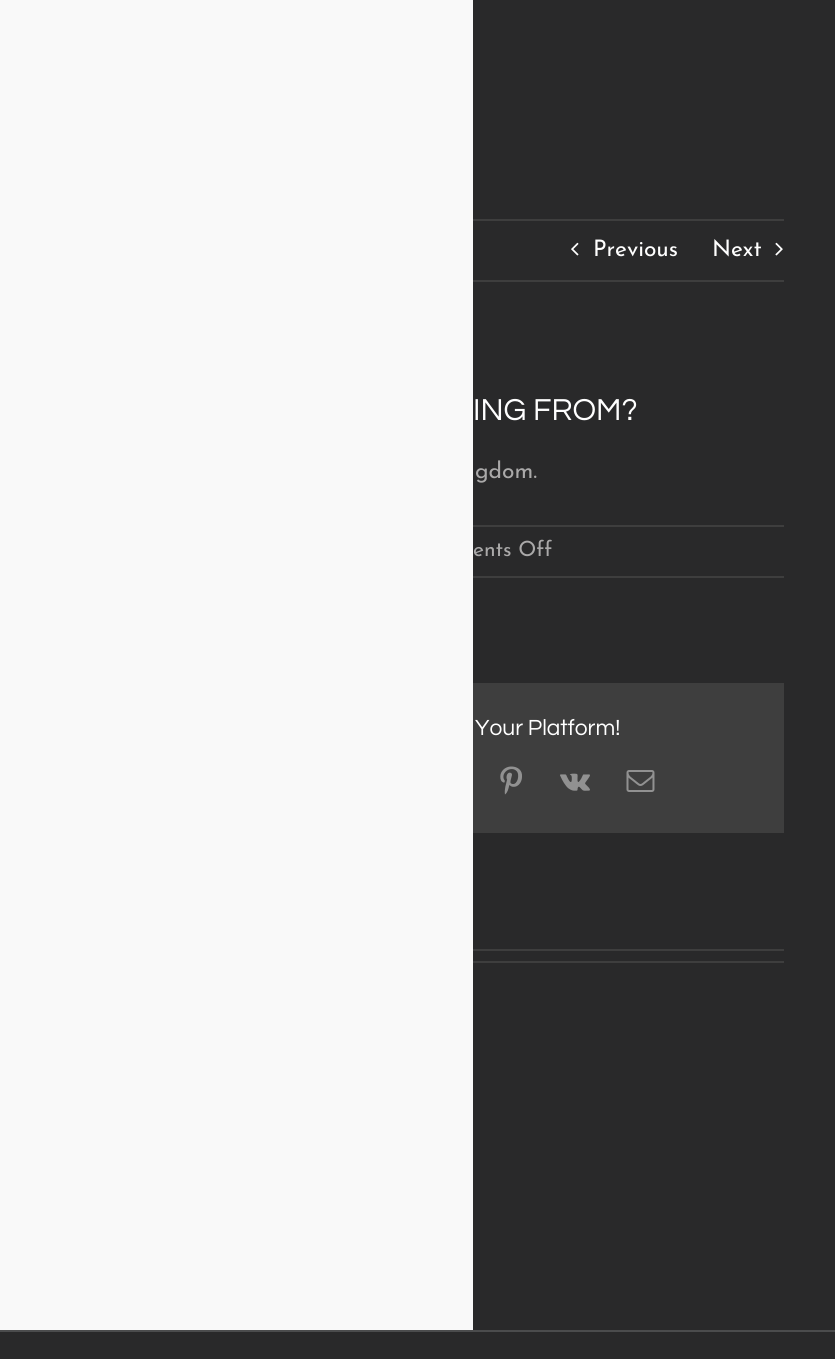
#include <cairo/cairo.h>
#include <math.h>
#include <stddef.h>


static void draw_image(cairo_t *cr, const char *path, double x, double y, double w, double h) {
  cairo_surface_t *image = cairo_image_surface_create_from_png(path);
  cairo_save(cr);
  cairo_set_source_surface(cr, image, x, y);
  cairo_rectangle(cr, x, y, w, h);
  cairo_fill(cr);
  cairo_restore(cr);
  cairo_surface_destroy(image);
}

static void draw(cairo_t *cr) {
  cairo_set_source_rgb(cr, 41 / 255.0, 41 / 255.0, 42 / 255.0);
  cairo_paint(cr);
  cairo_set_source_rgb(cr, 249 / 255.0, 249 / 255.0, 249 / 255.0);
  cairo_rectangle(cr, 0, 0, 473, 1330);
  cairo_fill(cr);
  cairo_set_source_rgb(cr, 62 / 255.0, 62 / 255.0, 62 / 255.0);
  cairo_rectangle(cr, 473, 219, 311, 2);
  cairo_fill(cr);
  cairo_rectangle(cr, 473, 280, 311, 2);
  cairo_fill(cr);
  draw_image(cr, "images/1.png", 571, 242, 8, 14);
  draw_image(cr, "images/2.png", 775, 242, 8, 14);
  cairo_rectangle(cr, 473, 525, 311, 2);
  cairo_fill(cr);
  cairo_rectangle(cr, 473, 576, 311, 2);
  cairo_fill(cr);
  cairo_rectangle(cr, 473, 683, 311, 150);
  cairo_fill(cr);
  draw_image(cr, "images/3.png", 500, 766, 22, 29);
  draw_image(cr, "images/4.png", 560, 773, 30, 18);
  draw_image(cr, "images/5.png", 626, 770, 29, 22);
  cairo_rectangle(cr, 473, 949, 311, 2);
  cairo_fill(cr);
  cairo_rectangle(cr, 473, 961, 311, 2);
  cairo_fill(cr);
  cairo_set_source_rgb(cr, 75 / 255.0, 76 / 255.0, 77 / 255.0);
  cairo_rectangle(cr, 0, 1330, 835, 2);
  cairo_fill(cr);
  cairo_select_font_face(cr, "Josefin Sans", CAIRO_FONT_SLANT_NORMAL, CAIRO_FONT_WEIGHT_NORMAL);
  cairo_set_font_size(cr, 22.75);
  cairo_set_source_rgb(cr, 1, 1, 1);
  cairo_move_to(cr, 593, 256);
  cairo_show_text(cr, "Previous");
  cairo_move_to(cr, 712, 256);
  cairo_show_text(cr, "Next");
  cairo_select_font_face(cr, "Questrial", CAIRO_FONT_SLANT_NORMAL, CAIRO_FONT_WEIGHT_NORMAL);
  cairo_set_font_size(cr, 31.5);
  cairo_move_to(cr, 473, 420);
  cairo_show_text(cr, "ING FROM?");
  cairo_select_font_face(cr, "Josefin Sans", CAIRO_FONT_SLANT_NORMAL, CAIRO_FONT_WEIGHT_NORMAL);
  cairo_set_font_size(cr, 22.75);
  cairo_set_source_rgb(cr, 170 / 255.0, 169 / 255.0, 169 / 255.0);
  cairo_move_to(cr, 475, 478);
  cairo_show_text(cr, "gdom.");
  cairo_set_font_size(cr, 21);
  cairo_move_to(cr, 473, 556);
  cairo_show_text(cr, "ents Off");
  cairo_select_font_face(cr, "Questrial", CAIRO_FONT_SLANT_NORMAL, CAIRO_FONT_WEIGHT_NORMAL);
  cairo_set_font_size(cr, 22.75);
  cairo_set_source_rgb(cr, 1, 1, 1);
  cairo_move_to(cr, 475, 735);
  cairo_show_text(cr, "Your Platform!");
}

int main(void) {
  cairo_surface_t *surface = cairo_image_surface_create(CAIRO_FORMAT_RGB24, 835, 1359);
  cairo_t *cr = cairo_create(surface);
  cairo_font_options_t *options = cairo_font_options_create();
  cairo_font_options_set_hint_metrics(options, CAIRO_HINT_METRICS_OFF);
  cairo_font_options_set_hint_style(options, CAIRO_HINT_STYLE_NONE);
  cairo_set_font_options(cr, options);
  cairo_set_miter_limit(cr, 4);
  draw(cr);
  cairo_surface_write_to_png(surface, "out.png");
  cairo_font_options_destroy(options);
  cairo_destroy(cr);
  cairo_surface_destroy(surface);
  return 0;
}
